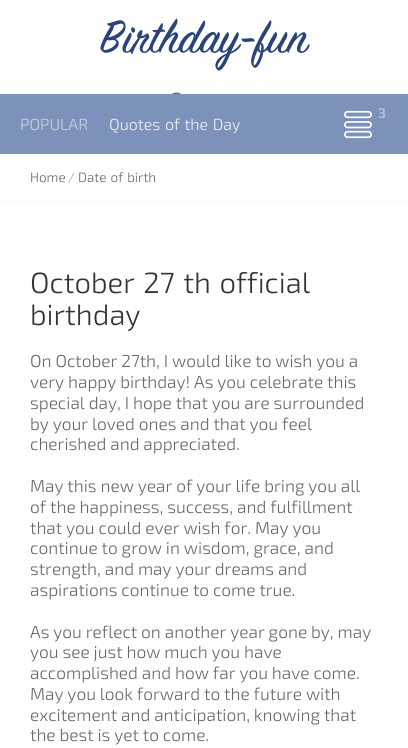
#include <cairo/cairo.h>
#include <math.h>
#include <stddef.h>


static void draw_spaced(cairo_t *cr, double x, double y, const char *s, double letter, double word) {
  cairo_move_to(cr, x, y);
  while (*s) {
    char ch[5] = {0};
    int n = 0;
    do ch[n++] = *s++; while ((*s & 0xC0) == 0x80);
    cairo_show_text(cr, ch);
    cairo_rel_move_to(cr, letter + word * (*ch == ' '), 0);
  }
}

static void draw_image(cairo_t *cr, const char *path, double x, double y, double w, double h) {
  cairo_surface_t *image = cairo_image_surface_create_from_png(path);
  cairo_save(cr);
  cairo_set_source_surface(cr, image, x, y);
  cairo_rectangle(cr, x, y, w, h);
  cairo_fill(cr);
  cairo_restore(cr);
  cairo_surface_destroy(image);
}

static void draw(cairo_t *cr) {
  cairo_set_source_rgb(cr, 1, 1, 1);
  cairo_paint(cr);
  draw_image(cr, "images/1.png", 171, 92, 11, 2);
  cairo_set_source_rgb(cr, 125 / 255.0, 146 / 255.0, 186 / 255.0);
  cairo_rectangle(cr, 0, 94, 408, 60);
  cairo_fill(cr);
  draw_image(cr, "images/2.png", 344, 110, 28, 29);
  cairo_set_source_rgb(cr, 250 / 255.0, 250 / 255.0, 250 / 255.0);
  cairo_rectangle(cr, 0, 200, 408, 1);
  cairo_fill(cr);
  cairo_select_font_face(cr, "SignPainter", CAIRO_FONT_SLANT_NORMAL, CAIRO_FONT_WEIGHT_NORMAL);
  cairo_set_font_size(cr, 50.5);
  cairo_set_source_rgb(cr, 41 / 255.0, 68 / 255.0, 121 / 255.0);
  cairo_move_to(cr, 100, 52);
  cairo_show_text(cr, "Birthday-fun");
  cairo_select_font_face(cr, "Exo 2", CAIRO_FONT_SLANT_NORMAL, CAIRO_FONT_WEIGHT_BOLD);
  cairo_set_font_size(cr, 14);
  cairo_set_source_rgb(cr, 177 / 255.0, 190 / 255.0, 214 / 255.0);
  cairo_move_to(cr, 378, 118);
  cairo_show_text(cr, "3");
  cairo_select_font_face(cr, "Exo 2 Light", CAIRO_FONT_SLANT_NORMAL, CAIRO_FONT_WEIGHT_NORMAL);
  cairo_set_font_size(cr, 16);
  cairo_set_source_rgb(cr, 203 / 255.0, 211 / 255.0, 227 / 255.0);
  cairo_move_to(cr, 20, 130);
  cairo_show_text(cr, "POPULAR");
  cairo_set_source_rgb(cr, 242 / 255.0, 244 / 255.0, 248 / 255.0);
  draw_spaced(cr, 109, 130, "Quotes of the Day", 0, 1);
  cairo_set_font_size(cr, 13.5);
  cairo_set_source_rgb(cr, 102 / 255.0, 102 / 255.0, 102 / 255.0);
  cairo_move_to(cr, 30, 182);
  cairo_show_text(cr, "Home");
  cairo_set_source_rgb(cr, 153 / 255.0, 153 / 255.0, 153 / 255.0);
  cairo_move_to(cr, 68, 182);
  cairo_show_text(cr, "/");
  cairo_set_source_rgb(cr, 102 / 255.0, 102 / 255.0, 102 / 255.0);
  draw_spaced(cr, 78, 182, "Date of birth", 0, 1);
  cairo_set_font_size(cr, 29.25);
  cairo_set_source_rgb(cr, 51 / 255.0, 51 / 255.0, 51 / 255.0);
  draw_spaced(cr, 30, 293, "October 27 th official", 0, 2);
  cairo_move_to(cr, 30, 325);
  cairo_show_text(cr, "birthday");
  cairo_set_font_size(cr, 17.3);
  cairo_set_source_rgb(cr, 102 / 255.0, 102 / 255.0, 102 / 255.0);
  cairo_move_to(cr, 30, 367);
  cairo_show_text(cr, "On October 27th, I would like to wish you a");
  cairo_move_to(cr, 30, 388);
  cairo_show_text(cr, "very happy birthday! As you celebrate this");
  cairo_move_to(cr, 30, 409);
  cairo_show_text(cr, "special day, I hope that you are surrounded");
  cairo_move_to(cr, 30, 430);
  cairo_show_text(cr, "by your loved ones and that you feel");
  cairo_move_to(cr, 30, 450);
  cairo_show_text(cr, "cherished and appreciated.");
  cairo_move_to(cr, 30, 492);
  cairo_show_text(cr, "May this new year of your life bring you all");
  cairo_move_to(cr, 30, 513);
  cairo_show_text(cr, "of the happiness, success, and fulfillment");
  cairo_move_to(cr, 30, 534);
  cairo_show_text(cr, "that you could ever wish for. May you");
  cairo_move_to(cr, 30, 554);
  cairo_show_text(cr, "continue to grow in wisdom, grace, and");
  cairo_move_to(cr, 30, 575);
  cairo_show_text(cr, "strength, and may your dreams and");
  cairo_move_to(cr, 30, 596);
  cairo_show_text(cr, "aspirations continue to come true.");
  cairo_move_to(cr, 30, 638);
  cairo_show_text(cr, "As you reflect on another year gone by, may");
  cairo_move_to(cr, 30, 658);
  cairo_show_text(cr, "you see just how much you have");
  cairo_move_to(cr, 30, 679);
  cairo_show_text(cr, "accomplished and how far you have come.");
  cairo_move_to(cr, 30, 700);
  cairo_show_text(cr, "May you look forward to the future with");
  cairo_move_to(cr, 30, 721);
  cairo_show_text(cr, "excitement and anticipation, knowing that");
  cairo_move_to(cr, 30, 741);
  cairo_show_text(cr, "the best is yet to come.");
}

int main(void) {
  cairo_surface_t *surface = cairo_image_surface_create(CAIRO_FORMAT_RGB24, 408, 748);
  cairo_t *cr = cairo_create(surface);
  cairo_font_options_t *options = cairo_font_options_create();
  cairo_font_options_set_hint_metrics(options, CAIRO_HINT_METRICS_OFF);
  cairo_font_options_set_hint_style(options, CAIRO_HINT_STYLE_NONE);
  cairo_set_font_options(cr, options);
  cairo_set_miter_limit(cr, 4);
  draw(cr);
  cairo_surface_write_to_png(surface, "out.png");
  cairo_font_options_destroy(options);
  cairo_destroy(cr);
  cairo_surface_destroy(surface);
  return 0;
}
